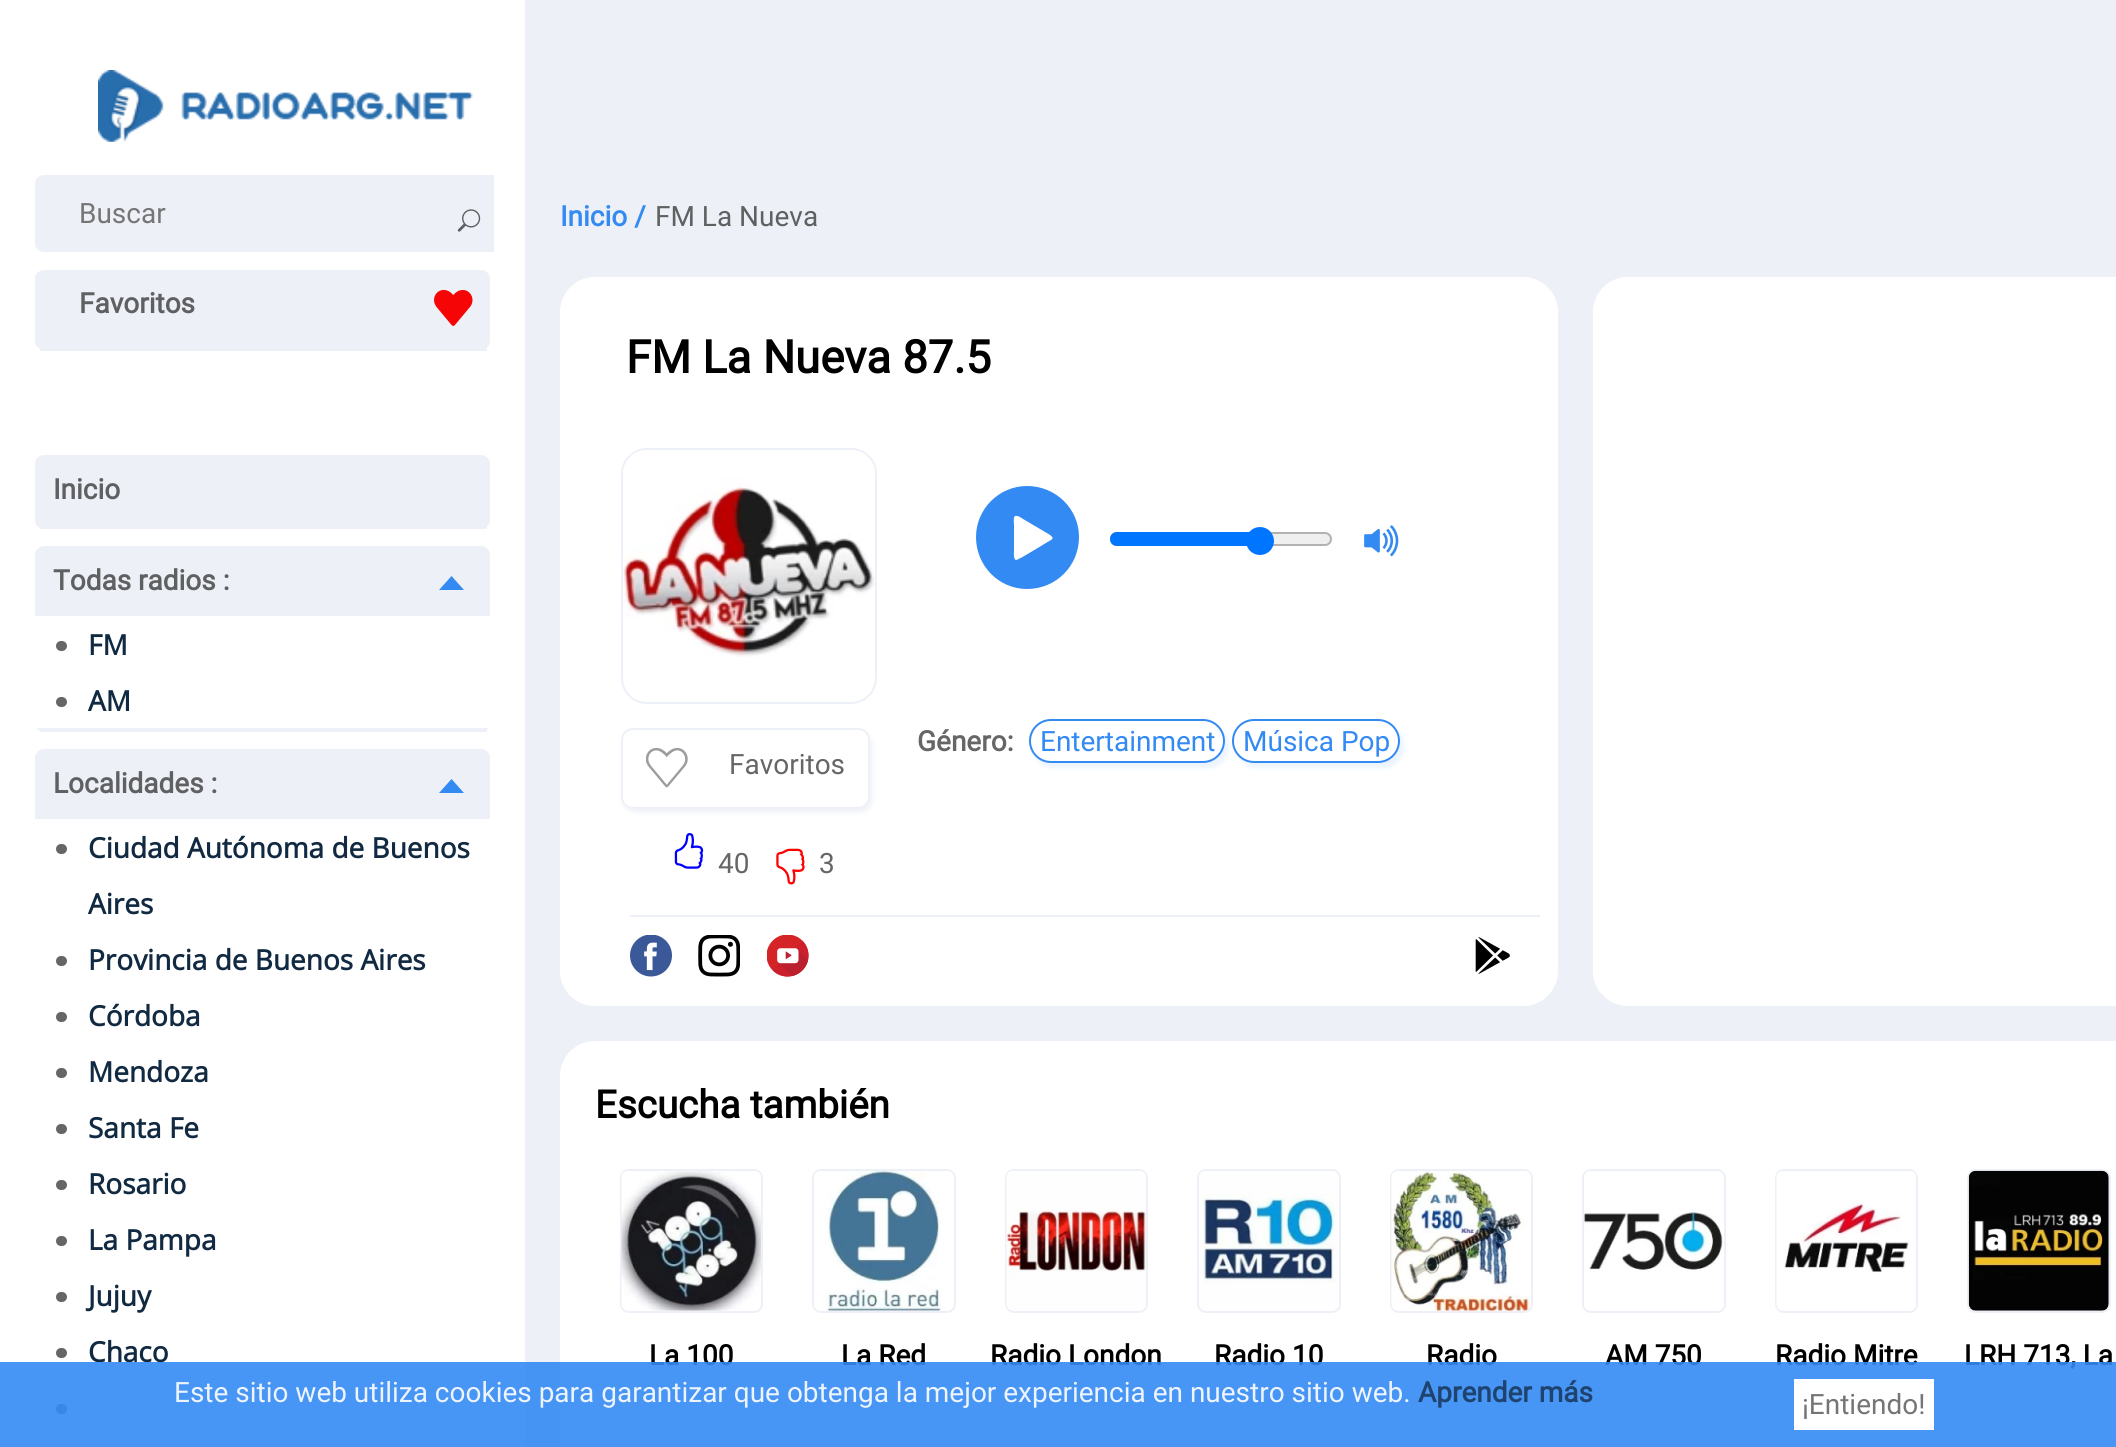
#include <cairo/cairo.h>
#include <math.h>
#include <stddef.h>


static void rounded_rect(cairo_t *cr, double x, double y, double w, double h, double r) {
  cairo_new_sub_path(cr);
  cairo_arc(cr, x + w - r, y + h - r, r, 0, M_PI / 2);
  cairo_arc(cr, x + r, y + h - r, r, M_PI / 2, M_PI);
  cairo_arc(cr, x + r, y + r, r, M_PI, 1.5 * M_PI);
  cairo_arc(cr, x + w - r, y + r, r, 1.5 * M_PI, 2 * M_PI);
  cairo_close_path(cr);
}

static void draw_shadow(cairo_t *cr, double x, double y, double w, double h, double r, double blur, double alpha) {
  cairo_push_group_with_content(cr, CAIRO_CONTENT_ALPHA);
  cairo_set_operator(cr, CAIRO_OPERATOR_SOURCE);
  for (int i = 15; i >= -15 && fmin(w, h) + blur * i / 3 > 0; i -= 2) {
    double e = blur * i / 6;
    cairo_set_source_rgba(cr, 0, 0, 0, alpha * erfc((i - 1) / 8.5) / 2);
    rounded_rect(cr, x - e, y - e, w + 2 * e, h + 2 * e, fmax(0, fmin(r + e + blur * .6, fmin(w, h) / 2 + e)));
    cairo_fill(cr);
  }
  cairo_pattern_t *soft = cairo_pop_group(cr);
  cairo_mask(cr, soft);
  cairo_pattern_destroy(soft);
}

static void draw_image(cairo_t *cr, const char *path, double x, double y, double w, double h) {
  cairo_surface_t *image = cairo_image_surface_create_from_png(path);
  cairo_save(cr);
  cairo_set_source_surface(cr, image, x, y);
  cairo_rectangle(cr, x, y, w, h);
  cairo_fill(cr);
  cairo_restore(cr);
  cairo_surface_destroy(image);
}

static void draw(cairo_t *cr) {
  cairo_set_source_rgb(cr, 237 / 255.0, 240 / 255.0, 246 / 255.0);
  cairo_paint(cr);
  cairo_set_source_rgb(cr, 1, 1, 1);
  cairo_rectangle(cr, 0, 0, 525, 1447);
  cairo_fill(cr);
  draw_image(cr, "images/1.png", 98, 70, 375, 72);
  cairo_set_source_rgb(cr, 237 / 255.0, 240 / 255.0, 246 / 255.0);
  rounded_rect(cr, 35, 175, 455, 77, 9);
  cairo_fill(cr);
  cairo_rectangle(cr, 482, 175, 12, 77);
  cairo_fill(cr);
  draw_image(cr, "images/2.png", 457, 209, 24, 23);
  rounded_rect(cr, 35, 270, 455, 80, 9);
  cairo_fill(cr);
  cairo_rectangle(cr, 40, 348, 447, 3);
  cairo_fill(cr);
  draw_image(cr, "images/3.png", 434, 289, 39, 37);
  rounded_rect(cr, 35, 455, 455, 74, 9);
  cairo_fill(cr);
  cairo_rectangle(cr, 40, 527, 447, 2);
  cairo_fill(cr);
  rounded_rect(cr, 35, 546, 455, 186, 9);
  cairo_fill(cr);
  cairo_rectangle(cr, 40, 730, 447, 2);
  cairo_fill(cr);
  cairo_set_source_rgb(cr, 51 / 255.0, 138 / 255.0, 243 / 255.0);
  cairo_new_path(cr);
  cairo_move_to(cr, 464, 590);
  cairo_line_to(cr, 439, 590);
  cairo_line_to(cr, 451.5, 576);
  cairo_close_path(cr);
  cairo_fill(cr);
  cairo_set_source_rgb(cr, 1, 1, 1);
  cairo_rectangle(cr, 35, 616, 455, 112);
  cairo_fill(cr);
  cairo_set_source_rgb(cr, 102 / 255.0, 102 / 255.0, 102 / 255.0);
  rounded_rect(cr, 56, 641, 11, 10, 5);
  cairo_fill(cr);
  rounded_rect(cr, 56, 697, 11, 10, 5);
  cairo_fill(cr);
  cairo_set_source_rgb(cr, 237 / 255.0, 240 / 255.0, 246 / 255.0);
  rounded_rect(cr, 35, 749, 455, 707, 9);
  cairo_fill(cr);
  cairo_set_source_rgb(cr, 51 / 255.0, 138 / 255.0, 243 / 255.0);
  cairo_new_path(cr);
  cairo_move_to(cr, 464, 793);
  cairo_line_to(cr, 439, 793);
  cairo_line_to(cr, 451.5, 779);
  cairo_close_path(cr);
  cairo_fill(cr);
  cairo_set_source_rgb(cr, 1, 1, 1);
  cairo_rectangle(cr, 35, 819, 455, 628);
  cairo_fill(cr);
  cairo_set_source_rgb(cr, 102 / 255.0, 102 / 255.0, 102 / 255.0);
  rounded_rect(cr, 56, 844, 11, 10, 5);
  cairo_fill(cr);
  rounded_rect(cr, 56, 956, 11, 10, 5);
  cairo_fill(cr);
  rounded_rect(cr, 56, 1012, 11, 10, 5);
  cairo_fill(cr);
  rounded_rect(cr, 56, 1068, 11, 10, 5);
  cairo_fill(cr);
  rounded_rect(cr, 56, 1124, 11, 10, 5);
  cairo_fill(cr);
  rounded_rect(cr, 56, 1180, 11, 10, 5);
  cairo_fill(cr);
  rounded_rect(cr, 56, 1236, 11, 10, 5);
  cairo_fill(cr);
  rounded_rect(cr, 56, 1292, 11, 10, 5);
  cairo_fill(cr);
  rounded_rect(cr, 56, 1348, 11, 10, 5);
  cairo_fill(cr);
  rounded_rect(cr, 56, 1404, 11, 10, 5);
  cairo_fill(cr);
  cairo_set_source_rgb(cr, 1, 1, 1);
  rounded_rect(cr, 560, 277, 998, 729, 35);
  cairo_fill(cr);
  rounded_rect(cr, 622, 449, 254, 254, 25);
  cairo_set_source_rgb(cr, 237 / 255.0, 240 / 255.0, 246 / 255.0);
  cairo_stroke(cr);
  draw_image(cr, "images/4.png", 623, 450, 252, 207);
  cairo_set_source_rgb(cr, 51 / 255.0, 138 / 255.0, 243 / 255.0);
  cairo_new_path(cr);
  cairo_move_to(cr, 1027, 486);
  cairo_curve_to(cr, 999, 486, 976, 509, 976, 537);
  cairo_curve_to(cr, 976, 566, 999, 589, 1027, 589);
  cairo_curve_to(cr, 1056, 589, 1079, 566, 1079, 537);
  cairo_curve_to(cr, 1079, 509, 1056, 486, 1027, 486);
  cairo_close_path(cr);
  cairo_move_to(cr, 1051, 540);
  cairo_curve_to(cr, 1047, 542, 1019, 560, 1016, 560);
  cairo_curve_to(cr, 1013, 559, 1014, 552, 1014, 551);
  cairo_line_to(cr, 1014, 525);
  cairo_curve_to(cr, 1014, 524, 1013, 517, 1015, 516);
  cairo_curve_to(cr, 1018, 515, 1023, 519, 1023, 519);
  cairo_line_to(cr, 1040, 529);
  cairo_curve_to(cr, 1048, 534, 1056, 537, 1051, 540);
  cairo_close_path(cr);
  cairo_fill(cr);
  cairo_set_source_rgb(cr, 239 / 255.0, 239 / 255.0, 239 / 255.0);
  rounded_rect(cr, 1111, 533, 220, 12, 6);
  cairo_fill_preserve(cr);
  cairo_set_source_rgb(cr, 178 / 255.0, 178 / 255.0, 178 / 255.0);
  cairo_stroke(cr);
  cairo_set_source_rgb(cr, 0, 117 / 255.0, 1);
  cairo_new_path(cr);
  cairo_move_to(cr, 1117, 532);
  cairo_line_to(cr, 1260, 532);
  cairo_line_to(cr, 1260, 546);
  cairo_line_to(cr, 1117, 546);
  cairo_curve_to(cr, 1113, 546, 1110, 543, 1110, 539);
  cairo_curve_to(cr, 1110, 535, 1113, 532, 1117, 532);
  cairo_close_path(cr);
  cairo_fill(cr);
  cairo_arc(cr, 1260, 541, 14, 0, 2 * M_PI);
  cairo_fill(cr);
  draw_image(cr, "images/5.png", 1364, 525, 35, 32);
  cairo_save(cr);
  cairo_set_fill_rule(cr, CAIRO_FILL_RULE_EVEN_ODD);
  cairo_new_path(cr);
  cairo_move_to(cr, 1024, 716);
  cairo_line_to(cr, 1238, 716);
  cairo_line_to(cr, 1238, 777);
  cairo_line_to(cr, 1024, 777);
  cairo_close_path(cr);
  cairo_move_to(cr, 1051, 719);
  cairo_line_to(cr, 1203, 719);
  cairo_curve_to(cr, 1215, 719, 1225, 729, 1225, 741);
  cairo_curve_to(cr, 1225, 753, 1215, 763, 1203, 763);
  cairo_line_to(cr, 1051, 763);
  cairo_curve_to(cr, 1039, 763, 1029, 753, 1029, 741);
  cairo_curve_to(cr, 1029, 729, 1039, 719, 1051, 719);
  cairo_close_path(cr);
  cairo_clip(cr);
  cairo_set_source_rgb(cr, 51 / 255.0, 138 / 255.0, 243 / 255.0);
  draw_shadow(cr, 1033, 725, 196, 43, 21.5, 2.5, 0.1);
  cairo_restore(cr);
  rounded_rect(cr, 1030, 720, 194, 42, 21);
  cairo_set_source_rgb(cr, 51 / 255.0, 138 / 255.0, 243 / 255.0);
  cairo_stroke(cr);
  cairo_save(cr);
  cairo_set_fill_rule(cr, CAIRO_FILL_RULE_EVEN_ODD);
  cairo_new_path(cr);
  cairo_move_to(cr, 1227, 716);
  cairo_line_to(cr, 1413, 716);
  cairo_line_to(cr, 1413, 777);
  cairo_line_to(cr, 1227, 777);
  cairo_close_path(cr);
  cairo_move_to(cr, 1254, 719);
  cairo_line_to(cr, 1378, 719);
  cairo_curve_to(cr, 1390, 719, 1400, 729, 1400, 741);
  cairo_curve_to(cr, 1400, 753, 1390, 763, 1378, 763);
  cairo_line_to(cr, 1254, 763);
  cairo_curve_to(cr, 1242, 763, 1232, 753, 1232, 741);
  cairo_curve_to(cr, 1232, 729, 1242, 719, 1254, 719);
  cairo_close_path(cr);
  cairo_clip(cr);
  cairo_set_source_rgb(cr, 51 / 255.0, 138 / 255.0, 243 / 255.0);
  draw_shadow(cr, 1236, 725, 168, 43, 21.5, 2.5, 0.1);
  cairo_restore(cr);
  rounded_rect(cr, 1233, 720, 166, 42, 21);
  cairo_stroke(cr);
  cairo_save(cr);
  cairo_set_fill_rule(cr, CAIRO_FILL_RULE_EVEN_ODD);
  cairo_new_path(cr);
  cairo_move_to(cr, 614, 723);
  cairo_line_to(cr, 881, 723);
  cairo_line_to(cr, 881, 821);
  cairo_line_to(cr, 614, 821);
  cairo_close_path(cr);
  cairo_move_to(cr, 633, 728);
  cairo_line_to(cr, 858, 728);
  cairo_curve_to(cr, 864.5, 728, 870, 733.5, 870, 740);
  cairo_line_to(cr, 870, 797);
  cairo_curve_to(cr, 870, 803.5, 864.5, 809, 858, 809);
  cairo_line_to(cr, 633, 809);
  cairo_curve_to(cr, 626.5, 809, 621, 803.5, 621, 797);
  cairo_line_to(cr, 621, 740);
  cairo_curve_to(cr, 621, 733.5, 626.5, 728, 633, 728);
  cairo_close_path(cr);
  cairo_clip(cr);
  cairo_set_source_rgb(cr, 237 / 255.0, 240 / 255.0, 246 / 255.0);
  draw_shadow(cr, 623, 732, 249, 80, 12, 2.5, 1);
  cairo_restore(cr);
  rounded_rect(cr, 622, 729, 247, 79, 11);
  cairo_set_source_rgb(cr, 237 / 255.0, 240 / 255.0, 246 / 255.0);
  cairo_stroke(cr);
  draw_image(cr, "images/6.png", 646, 747, 42, 41);
  draw_image(cr, "images/7.png", 674, 833, 30, 36);
  draw_image(cr, "images/8.png", 776, 848, 29, 37);
  cairo_rectangle(cr, 630, 915, 910, 2);
  cairo_fill(cr);
  draw_image(cr, "images/9.png", 630, 935, 42, 42);
  draw_image(cr, "images/10.png", 698, 935, 42, 42);
  draw_image(cr, "images/11.png", 767, 935, 42, 42);
  draw_image(cr, "images/12.png", 1475, 937, 35, 37);
  cairo_set_source_rgb(cr, 1, 1, 1);
  rounded_rect(cr, 1593, 277, 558, 729, 35);
  cairo_fill(cr);
  rounded_rect(cr, 560, 1041, 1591, 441, 35);
  cairo_fill(cr);
  rounded_rect(cr, 621, 1170, 141, 142, 8);
  cairo_set_source_rgb(cr, 237 / 255.0, 240 / 255.0, 246 / 255.0);
  cairo_stroke(cr);
  draw_image(cr, "images/13.png", 621, 1171, 140, 140);
  rounded_rect(cr, 813, 1170, 142, 142, 8);
  cairo_stroke(cr);
  draw_image(cr, "images/14.png", 814, 1171, 138, 140);
  rounded_rect(cr, 1006, 1170, 141, 142, 8);
  cairo_stroke(cr);
  draw_image(cr, "images/15.png", 1006, 1171, 140, 139);
  rounded_rect(cr, 1198, 1170, 142, 142, 8);
  cairo_stroke(cr);
  draw_image(cr, "images/16.png", 1199, 1171, 139, 138);
  rounded_rect(cr, 1391, 1170, 141, 142, 8);
  cairo_stroke(cr);
  draw_image(cr, "images/17.png", 1391, 1171, 140, 140);
  rounded_rect(cr, 1583, 1170, 142, 142, 8);
  cairo_stroke(cr);
  draw_image(cr, "images/18.png", 1584, 1171, 139, 138);
  rounded_rect(cr, 1776, 1170, 141, 142, 8);
  cairo_stroke(cr);
  draw_image(cr, "images/19.png", 1776, 1171, 140, 139);
  rounded_rect(cr, 1968, 1170, 142, 142, 8);
  cairo_stroke(cr);
  draw_image(cr, "images/20.png", 1968, 1170, 141, 141);
  cairo_select_font_face(cr, "Roboto", CAIRO_FONT_SLANT_NORMAL, CAIRO_FONT_WEIGHT_NORMAL);
  cairo_set_font_size(cr, 28);
  cairo_set_source_rgb(cr, 117 / 255.0, 117 / 255.0, 117 / 255.0);
  cairo_move_to(cr, 79, 223);
  cairo_show_text(cr, "Buscar");
  cairo_select_font_face(cr, "Roboto", CAIRO_FONT_SLANT_NORMAL, CAIRO_FONT_WEIGHT_BOLD);
  cairo_set_source_rgb(cr, 95 / 255.0, 96 / 255.0, 98 / 255.0);
  cairo_move_to(cr, 79, 313);
  cairo_show_text(cr, "Favoritos");
  cairo_move_to(cr, 53, 499);
  cairo_show_text(cr, "Inicio");
  cairo_move_to(cr, 53, 590);
  cairo_show_text(cr, "Todas radios :");
  cairo_select_font_face(cr, "Open Sans", CAIRO_FONT_SLANT_NORMAL, CAIRO_FONT_WEIGHT_BOLD);
  cairo_set_source_rgb(cr, 17 / 255.0, 42 / 255.0, 66 / 255.0);
  cairo_move_to(cr, 88, 655);
  cairo_show_text(cr, "FM");
  cairo_move_to(cr, 88, 711);
  cairo_show_text(cr, "AM");
  cairo_select_font_face(cr, "Roboto", CAIRO_FONT_SLANT_NORMAL, CAIRO_FONT_WEIGHT_BOLD);
  cairo_set_source_rgb(cr, 95 / 255.0, 96 / 255.0, 98 / 255.0);
  cairo_move_to(cr, 53, 793);
  cairo_show_text(cr, "Localidades :");
  cairo_select_font_face(cr, "Open Sans", CAIRO_FONT_SLANT_NORMAL, CAIRO_FONT_WEIGHT_BOLD);
  cairo_set_source_rgb(cr, 17 / 255.0, 42 / 255.0, 66 / 255.0);
  cairo_move_to(cr, 88, 858);
  cairo_show_text(cr, "Ciudad Autónoma de Buenos");
  cairo_move_to(cr, 88, 914);
  cairo_show_text(cr, "Aires");
  cairo_move_to(cr, 88, 970);
  cairo_show_text(cr, "Provincia de Buenos Aires");
  cairo_move_to(cr, 88, 1026);
  cairo_show_text(cr, "Córdoba");
  cairo_move_to(cr, 88, 1082);
  cairo_show_text(cr, "Mendoza");
  cairo_move_to(cr, 88, 1138);
  cairo_show_text(cr, "Santa Fe");
  cairo_move_to(cr, 88, 1194);
  cairo_show_text(cr, "Rosario");
  cairo_move_to(cr, 88, 1250);
  cairo_show_text(cr, "La Pampa");
  cairo_move_to(cr, 88, 1306);
  cairo_show_text(cr, "Jujuy");
  cairo_move_to(cr, 88, 1362);
  cairo_show_text(cr, "Chaco");
  cairo_select_font_face(cr, "Roboto", CAIRO_FONT_SLANT_NORMAL, CAIRO_FONT_WEIGHT_BOLD);
  cairo_set_source_rgb(cr, 51 / 255.0, 138 / 255.0, 243 / 255.0);
  cairo_move_to(cr, 560, 226);
  cairo_show_text(cr, "Inicio /");
  cairo_select_font_face(cr, "Roboto", CAIRO_FONT_SLANT_NORMAL, CAIRO_FONT_WEIGHT_NORMAL);
  cairo_set_source_rgb(cr, 95 / 255.0, 96 / 255.0, 98 / 255.0);
  cairo_move_to(cr, 655, 226);
  cairo_show_text(cr, "FM La Nueva");
  cairo_select_font_face(cr, "Roboto", CAIRO_FONT_SLANT_NORMAL, CAIRO_FONT_WEIGHT_BOLD);
  cairo_set_font_size(cr, 45.5);
  cairo_set_source_rgb(cr, 0, 0, 0);
  cairo_move_to(cr, 626, 373);
  cairo_show_text(cr, "FM La Nueva 87.5");
  cairo_set_font_size(cr, 28);
  cairo_set_source_rgb(cr, 102 / 255.0, 102 / 255.0, 102 / 255.0);
  cairo_move_to(cr, 917, 751);
  cairo_show_text(cr, "Género:");
  cairo_select_font_face(cr, "Roboto", CAIRO_FONT_SLANT_NORMAL, CAIRO_FONT_WEIGHT_NORMAL);
  cairo_set_source_rgb(cr, 51 / 255.0, 138 / 255.0, 243 / 255.0);
  cairo_move_to(cr, 1040, 751);
  cairo_show_text(cr, "Entertainment");
  cairo_move_to(cr, 1243, 751);
  cairo_show_text(cr, "Música Pop");
  cairo_set_source_rgb(cr, 102 / 255.0, 102 / 255.0, 102 / 255.0);
  cairo_move_to(cr, 729, 774);
  cairo_show_text(cr, "Favoritos");
  cairo_move_to(cr, 718, 873);
  cairo_show_text(cr, "40");
  cairo_move_to(cr, 819, 873);
  cairo_show_text(cr, "3");
  cairo_select_font_face(cr, "Roboto", CAIRO_FONT_SLANT_NORMAL, CAIRO_FONT_WEIGHT_BOLD);
  cairo_set_font_size(cr, 38.5);
  cairo_set_source_rgb(cr, 0, 0, 0);
  cairo_move_to(cr, 595, 1118);
  cairo_show_text(cr, "Escucha también");
  cairo_set_font_size(cr, 28);
  cairo_move_to(cr, 649, 1365);
  cairo_show_text(cr, "La 100");
  cairo_move_to(cr, 841, 1365);
  cairo_show_text(cr, "La Red");
  cairo_move_to(cr, 990, 1365);
  cairo_show_text(cr, "Radio London");
  cairo_move_to(cr, 1214, 1365);
  cairo_show_text(cr, "Radio 10");
  cairo_move_to(cr, 1426, 1365);
  cairo_show_text(cr, "Radio");
  cairo_move_to(cr, 1605, 1365);
  cairo_show_text(cr, "AM 750");
  cairo_move_to(cr, 1775, 1365);
  cairo_show_text(cr, "Radio Mitre");
  cairo_move_to(cr, 1964, 1365);
  cairo_show_text(cr, "LRH 713, La");
  cairo_set_source_rgba(cr, 51 / 255.0, 138 / 255.0, 243 / 255.0, 0.9);
  cairo_rectangle(cr, 0, 1362, 2116, 85);
  cairo_fill(cr);
  cairo_select_font_face(cr, "Roboto", CAIRO_FONT_SLANT_NORMAL, CAIRO_FONT_WEIGHT_NORMAL);
  cairo_set_source_rgb(cr, 237 / 255.0, 244 / 255.0, 254 / 255.0);
  cairo_move_to(cr, 174, 1402);
  cairo_show_text(cr, "Este sitio web utiliza cookies para garantizar que obtenga la mejor experiencia en nuestro sitio web.");
  cairo_select_font_face(cr, "Roboto", CAIRO_FONT_SLANT_NORMAL, CAIRO_FONT_WEIGHT_BOLD);
  cairo_set_source_rgb(cr, 31 / 255.0, 67 / 255.0, 111 / 255.0);
  cairo_move_to(cr, 1418, 1402);
  cairo_show_text(cr, "Aprender más");
  cairo_set_source_rgb(cr, 1, 1, 1);
  cairo_rectangle(cr, 1794, 1379, 140, 51);
  cairo_fill(cr);
  cairo_select_font_face(cr, "Roboto", CAIRO_FONT_SLANT_NORMAL, CAIRO_FONT_WEIGHT_NORMAL);
  cairo_set_source_rgb(cr, 117 / 255.0, 117 / 255.0, 117 / 255.0);
  cairo_move_to(cr, 1802, 1414);
  cairo_show_text(cr, "¡Entiendo!");
}

int main(void) {
  cairo_surface_t *surface = cairo_image_surface_create(CAIRO_FORMAT_RGB24, 2116, 1447);
  cairo_t *cr = cairo_create(surface);
  cairo_font_options_t *options = cairo_font_options_create();
  cairo_font_options_set_hint_metrics(options, CAIRO_HINT_METRICS_OFF);
  cairo_font_options_set_hint_style(options, CAIRO_HINT_STYLE_NONE);
  cairo_set_font_options(cr, options);
  cairo_set_miter_limit(cr, 4);
  draw(cr);
  cairo_surface_write_to_png(surface, "out.png");
  cairo_font_options_destroy(options);
  cairo_destroy(cr);
  cairo_surface_destroy(surface);
  return 0;
}
